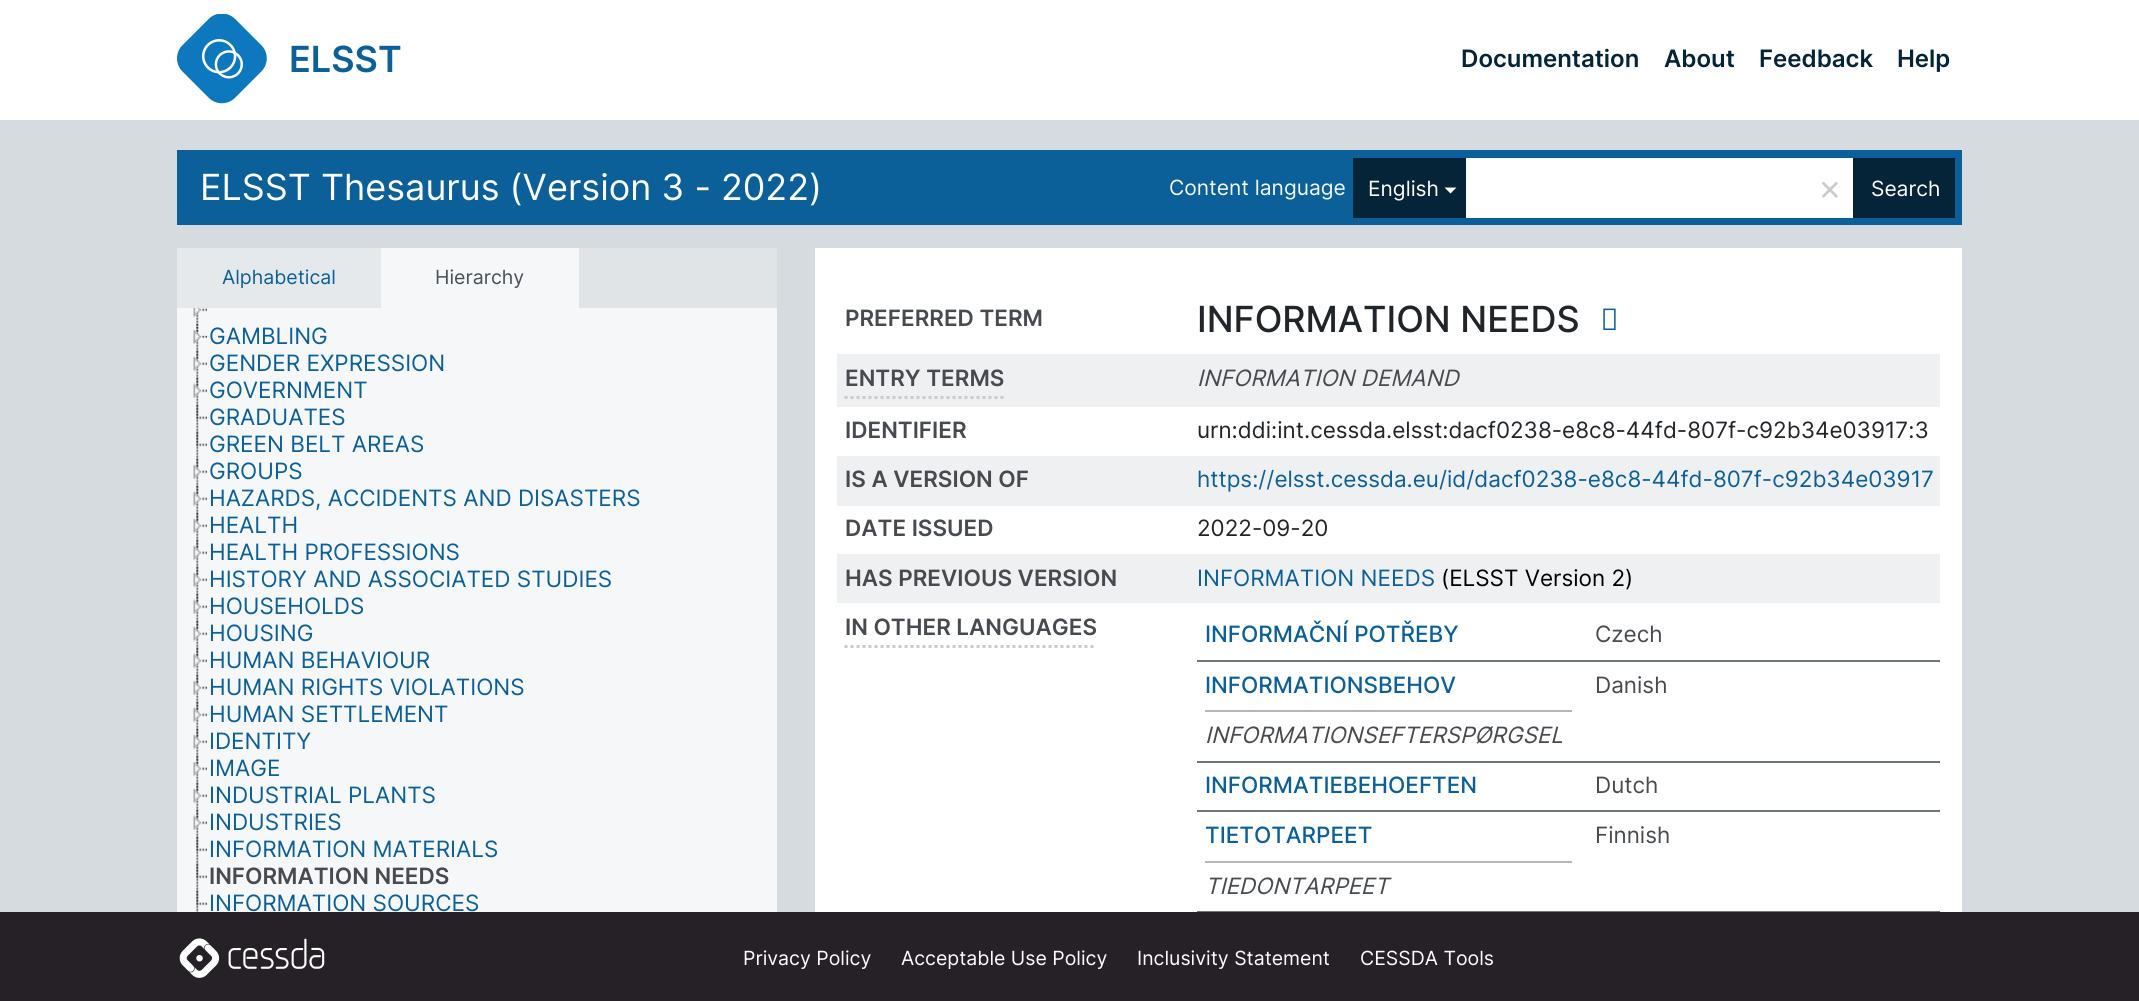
#include <cairo/cairo.h>
#include <math.h>
#include <stddef.h>


static void draw_image(cairo_t *cr, const char *path, double x, double y, double w, double h) {
  cairo_surface_t *image = cairo_image_surface_create_from_png(path);
  cairo_save(cr);
  cairo_set_source_surface(cr, image, x, y);
  cairo_rectangle(cr, x, y, w, h);
  cairo_fill(cr);
  cairo_restore(cr);
  cairo_surface_destroy(image);
}

static void draw(cairo_t *cr) {
  cairo_set_source_rgb(cr, 213 / 255.0, 219 / 255.0, 222 / 255.0);
  cairo_paint(cr);
  cairo_set_source_rgb(cr, 1, 1, 1);
  cairo_rectangle(cr, 0, 0, 2139, 120);
  cairo_fill(cr);
  draw_image(cr, "images/1.png", 177, 14, 90, 90);
  cairo_set_source_rgb(cr, 11 / 255.0, 96 / 255.0, 153 / 255.0);
  cairo_rectangle(cr, 177, 150, 1785, 75);
  cairo_fill(cr);
  cairo_set_source_rgb(cr, 5 / 255.0, 36 / 255.0, 56 / 255.0);
  cairo_rectangle(cr, 1353, 158, 113, 60);
  cairo_fill(cr);
  cairo_set_source_rgb(cr, 1, 1, 1);
  cairo_new_path(cr);
  cairo_move_to(cr, 1444.5, 187.5);
  cairo_line_to(cr, 1456.5, 187.5);
  cairo_line_to(cr, 1450.5, 193.5);
  cairo_close_path(cr);
  cairo_fill(cr);
  cairo_rectangle(cr, 1466, 158, 387, 60);
  cairo_fill(cr);
  cairo_set_source_rgb(cr, 5 / 255.0, 36 / 255.0, 56 / 255.0);
  cairo_rectangle(cr, 1853, 158, 102, 60);
  cairo_fill(cr);
  cairo_set_source_rgb(cr, 224 / 255.0, 228 / 255.0, 231 / 255.0);
  cairo_rectangle(cr, 579, 248, 198, 60);
  cairo_fill(cr);
  cairo_set_source_rgb(cr, 230 / 255.0, 233 / 255.0, 235 / 255.0);
  cairo_rectangle(cr, 177, 248, 204, 60);
  cairo_fill(cr);
  cairo_set_source_rgb(cr, 246 / 255.0, 247 / 255.0, 248 / 255.0);
  cairo_rectangle(cr, 381, 248, 198, 60);
  cairo_fill(cr);
  cairo_rectangle(cr, 177, 308, 600, 604);
  cairo_fill(cr);
  draw_image(cr, "images/2.png", 196, 308, 3, 16);
  draw_image(cr, "images/3.png", 193, 308, 14, 10);
  draw_image(cr, "images/4.png", 196, 323, 3, 28);
  draw_image(cr, "images/5.png", 193, 323, 14, 21);
  draw_image(cr, "images/4.png", 196, 350, 3, 28);
  draw_image(cr, "images/6.png", 193, 350, 14, 22);
  draw_image(cr, "images/4.png", 196, 377, 3, 28);
  draw_image(cr, "images/6.png", 193, 377, 14, 22);
  draw_image(cr, "images/4.png", 196, 404, 3, 28);
  draw_image(cr, "images/7.png", 196, 404, 11, 16);
  draw_image(cr, "images/4.png", 196, 431, 3, 28);
  draw_image(cr, "images/7.png", 196, 431, 11, 16);
  draw_image(cr, "images/8.png", 196, 458, 3, 28);
  draw_image(cr, "images/6.png", 193, 458, 14, 22);
  draw_image(cr, "images/4.png", 196, 485, 3, 28);
  draw_image(cr, "images/6.png", 193, 485, 14, 22);
  draw_image(cr, "images/4.png", 196, 512, 3, 28);
  draw_image(cr, "images/6.png", 193, 512, 14, 22);
  draw_image(cr, "images/4.png", 196, 539, 3, 28);
  draw_image(cr, "images/6.png", 193, 539, 14, 22);
  draw_image(cr, "images/4.png", 196, 566, 3, 28);
  draw_image(cr, "images/6.png", 193, 566, 14, 22);
  draw_image(cr, "images/4.png", 196, 593, 3, 28);
  draw_image(cr, "images/6.png", 193, 593, 14, 22);
  draw_image(cr, "images/4.png", 196, 620, 3, 28);
  draw_image(cr, "images/6.png", 193, 620, 14, 22);
  draw_image(cr, "images/4.png", 196, 647, 3, 28);
  draw_image(cr, "images/6.png", 193, 647, 14, 22);
  draw_image(cr, "images/4.png", 196, 674, 3, 28);
  draw_image(cr, "images/6.png", 193, 674, 14, 22);
  draw_image(cr, "images/4.png", 196, 701, 3, 28);
  draw_image(cr, "images/6.png", 193, 701, 14, 22);
  draw_image(cr, "images/4.png", 196, 728, 3, 28);
  draw_image(cr, "images/6.png", 193, 728, 14, 22);
  draw_image(cr, "images/4.png", 196, 755, 3, 28);
  draw_image(cr, "images/9.png", 193, 755, 14, 22);
  draw_image(cr, "images/4.png", 196, 782, 3, 28);
  draw_image(cr, "images/6.png", 193, 782, 14, 22);
  draw_image(cr, "images/4.png", 196, 809, 3, 28);
  draw_image(cr, "images/6.png", 193, 809, 14, 22);
  draw_image(cr, "images/4.png", 196, 836, 3, 28);
  draw_image(cr, "images/7.png", 196, 836, 11, 16);
  draw_image(cr, "images/4.png", 196, 863, 3, 28);
  draw_image(cr, "images/7.png", 196, 863, 11, 16);
  draw_image(cr, "images/10.png", 196, 890, 3, 22);
  draw_image(cr, "images/7.png", 196, 890, 11, 16);
  cairo_set_source_rgb(cr, 1, 1, 1);
  cairo_rectangle(cr, 815, 248, 1147, 664);
  cairo_fill(cr);
  draw_image(cr, "images/11.png", 1603, 308, 13, 22);
  cairo_set_source_rgb(cr, 239 / 255.0, 240 / 255.0, 241 / 255.0);
  cairo_rectangle(cr, 837, 354, 1103, 53);
  cairo_fill(cr);
  cairo_new_path(cr);
  cairo_move_to(cr, 844.5, 397.5);
  cairo_line_to(cr, 1003.5, 397.5);
  cairo_set_source_rgb(cr, 204 / 255.0, 204 / 255.0, 204 / 255.0);
  cairo_set_line_width(cr, 3);
  cairo_set_dash(cr, (double[]){3, 3}, 2, 0);
  cairo_stroke(cr);
  cairo_set_source_rgb(cr, 239 / 255.0, 240 / 255.0, 241 / 255.0);
  cairo_rectangle(cr, 837, 456, 1103, 50);
  cairo_fill(cr);
  cairo_rectangle(cr, 837, 554, 1103, 49);
  cairo_fill(cr);
  cairo_new_path(cr);
  cairo_move_to(cr, 844.5, 646.5);
  cairo_line_to(cr, 1096.5, 646.5);
  cairo_set_source_rgb(cr, 204 / 255.0, 204 / 255.0, 204 / 255.0);
  cairo_stroke(cr);
  cairo_set_source_rgb(cr, 108 / 255.0, 117 / 255.0, 125 / 255.0);
  cairo_rectangle(cr, 1197, 660, 743, 2);
  cairo_fill(cr);
  cairo_set_source_rgb(cr, 179 / 255.0, 184 / 255.0, 189 / 255.0);
  cairo_rectangle(cr, 1205, 710, 367, 2);
  cairo_fill(cr);
  cairo_set_source_rgb(cr, 108 / 255.0, 117 / 255.0, 125 / 255.0);
  cairo_rectangle(cr, 1197, 761, 743, 2);
  cairo_fill(cr);
  cairo_rectangle(cr, 1197, 810, 743, 2);
  cairo_fill(cr);
  cairo_set_source_rgb(cr, 179 / 255.0, 184 / 255.0, 189 / 255.0);
  cairo_rectangle(cr, 1205, 861, 367, 2);
  cairo_fill(cr);
  cairo_set_source_rgb(cr, 108 / 255.0, 117 / 255.0, 125 / 255.0);
  cairo_rectangle(cr, 1197, 911, 743, 1);
  cairo_fill(cr);
  cairo_set_source_rgb(cr, 38 / 255.0, 33 / 255.0, 38 / 255.0);
  cairo_rectangle(cr, 0, 912, 2139, 89);
  cairo_fill(cr);
  draw_image(cr, "images/12.png", 179, 938, 146, 40);
  cairo_select_font_face(cr, "Inter SemiBold", CAIRO_FONT_SLANT_NORMAL, CAIRO_FONT_WEIGHT_NORMAL);
  cairo_set_font_size(cr, 36);
  cairo_set_source_rgb(cr, 11 / 255.0, 96 / 255.0, 153 / 255.0);
  cairo_move_to(cr, 289, 72);
  cairo_show_text(cr, "ELSST");
  cairo_set_font_size(cr, 24);
  cairo_set_source_rgb(cr, 5 / 255.0, 36 / 255.0, 56 / 255.0);
  cairo_move_to(cr, 1461, 67);
  cairo_show_text(cr, "Documentation");
  cairo_move_to(cr, 1664, 67);
  cairo_show_text(cr, "About");
  cairo_move_to(cr, 1759, 67);
  cairo_show_text(cr, "Feedback");
  cairo_move_to(cr, 1897, 67);
  cairo_show_text(cr, "Help");
  cairo_select_font_face(cr, "Inter", CAIRO_FONT_SLANT_NORMAL, CAIRO_FONT_WEIGHT_NORMAL);
  cairo_set_font_size(cr, 36);
  cairo_set_source_rgb(cr, 253 / 255.0, 253 / 255.0, 254 / 255.0);
  cairo_move_to(cr, 200, 200);
  cairo_show_text(cr, "ELSST Thesaurus (Version 3 - 2022)");
  cairo_set_font_size(cr, 21);
  cairo_set_source_rgb(cr, 243 / 255.0, 247 / 255.0, 250 / 255.0);
  cairo_move_to(cr, 1169, 195);
  cairo_show_text(cr, "Content language");
  cairo_set_source_rgb(cr, 253 / 255.0, 253 / 255.0, 254 / 255.0);
  cairo_move_to(cr, 1368, 196);
  cairo_show_text(cr, "English");
  cairo_set_font_size(cr, 36);
  cairo_set_source_rgb(cr, 204 / 255.0, 204 / 255.0, 204 / 255.0);
  cairo_move_to(cr, 1818, 200);
  cairo_show_text(cr, "×");
  cairo_set_font_size(cr, 21);
  cairo_set_source_rgb(cr, 253 / 255.0, 253 / 255.0, 254 / 255.0);
  cairo_move_to(cr, 1871, 196);
  cairo_show_text(cr, "Search");
  cairo_set_font_size(cr, 19.5);
  cairo_set_source_rgb(cr, 11 / 255.0, 96 / 255.0, 153 / 255.0);
  cairo_move_to(cr, 222, 284);
  cairo_show_text(cr, "Alphabetical");
  cairo_set_source_rgb(cr, 73 / 255.0, 80 / 255.0, 87 / 255.0);
  cairo_move_to(cr, 435, 284);
  cairo_show_text(cr, "Hierarchy");
  cairo_set_font_size(cr, 22.5);
  cairo_set_source_rgb(cr, 11 / 255.0, 96 / 255.0, 153 / 255.0);
  cairo_move_to(cr, 209, 344);
  cairo_show_text(cr, "GAMBLING");
  cairo_move_to(cr, 209, 371);
  cairo_show_text(cr, "GENDER EXPRESSION");
  cairo_move_to(cr, 209, 398);
  cairo_show_text(cr, "GOVERNMENT");
  cairo_move_to(cr, 209, 425);
  cairo_show_text(cr, "GRADUATES");
  cairo_move_to(cr, 209, 452);
  cairo_show_text(cr, "GREEN BELT AREAS");
  cairo_move_to(cr, 209, 479);
  cairo_show_text(cr, "GROUPS");
  cairo_move_to(cr, 209, 506);
  cairo_show_text(cr, "HAZARDS, ACCIDENTS AND DISASTERS");
  cairo_move_to(cr, 209, 533);
  cairo_show_text(cr, "HEALTH");
  cairo_move_to(cr, 209, 560);
  cairo_show_text(cr, "HEALTH PROFESSIONS");
  cairo_move_to(cr, 209, 587);
  cairo_show_text(cr, "HISTORY AND ASSOCIATED STUDIES");
  cairo_move_to(cr, 209, 614);
  cairo_show_text(cr, "HOUSEHOLDS");
  cairo_move_to(cr, 209, 641);
  cairo_show_text(cr, "HOUSING");
  cairo_move_to(cr, 209, 668);
  cairo_show_text(cr, "HUMAN BEHAVIOUR");
  cairo_move_to(cr, 209, 695);
  cairo_show_text(cr, "HUMAN RIGHTS VIOLATIONS");
  cairo_move_to(cr, 209, 722);
  cairo_show_text(cr, "HUMAN SETTLEMENT");
  cairo_move_to(cr, 209, 749);
  cairo_show_text(cr, "IDENTITY");
  cairo_move_to(cr, 209, 776);
  cairo_show_text(cr, "IMAGE");
  cairo_move_to(cr, 209, 803);
  cairo_show_text(cr, "INDUSTRIAL PLANTS");
  cairo_move_to(cr, 209, 830);
  cairo_show_text(cr, "INDUSTRIES");
  cairo_move_to(cr, 209, 857);
  cairo_show_text(cr, "INFORMATION MATERIALS");
  cairo_select_font_face(cr, "Inter SemiBold", CAIRO_FONT_SLANT_NORMAL, CAIRO_FONT_WEIGHT_NORMAL);
  cairo_set_source_rgb(cr, 71 / 255.0, 75 / 255.0, 79 / 255.0);
  cairo_move_to(cr, 209, 884);
  cairo_show_text(cr, "INFORMATION NEEDS");
  cairo_select_font_face(cr, "Inter", CAIRO_FONT_SLANT_NORMAL, CAIRO_FONT_WEIGHT_NORMAL);
  cairo_set_source_rgb(cr, 11 / 255.0, 96 / 255.0, 153 / 255.0);
  cairo_move_to(cr, 209, 911);
  cairo_show_text(cr, "INFORMATION SOURCES");
  cairo_select_font_face(cr, "Inter SemiBold", CAIRO_FONT_SLANT_NORMAL, CAIRO_FONT_WEIGHT_NORMAL);
  cairo_set_source_rgb(cr, 71 / 255.0, 75 / 255.0, 79 / 255.0);
  cairo_move_to(cr, 845, 326);
  cairo_show_text(cr, "PREFERRED TERM");
  cairo_select_font_face(cr, "Inter Medium", CAIRO_FONT_SLANT_NORMAL, CAIRO_FONT_WEIGHT_NORMAL);
  cairo_set_font_size(cr, 36);
  cairo_set_source_rgb(cr, 33 / 255.0, 37 / 255.0, 41 / 255.0);
  cairo_move_to(cr, 1197, 332);
  cairo_show_text(cr, "INFORMATION NEEDS");
  cairo_select_font_face(cr, "Inter SemiBold", CAIRO_FONT_SLANT_NORMAL, CAIRO_FONT_WEIGHT_NORMAL);
  cairo_set_font_size(cr, 22.5);
  cairo_set_source_rgb(cr, 71 / 255.0, 75 / 255.0, 79 / 255.0);
  cairo_move_to(cr, 845, 386);
  cairo_show_text(cr, "ENTRY TERMS");
  cairo_select_font_face(cr, "Inter", CAIRO_FONT_SLANT_ITALIC, CAIRO_FONT_WEIGHT_NORMAL);
  cairo_move_to(cr, 1197, 386);
  cairo_show_text(cr, "INFORMATION DEMAND");
  cairo_select_font_face(cr, "Inter SemiBold", CAIRO_FONT_SLANT_NORMAL, CAIRO_FONT_WEIGHT_NORMAL);
  cairo_move_to(cr, 845, 438);
  cairo_show_text(cr, "IDENTIFIER");
  cairo_select_font_face(cr, "Inter", CAIRO_FONT_SLANT_NORMAL, CAIRO_FONT_WEIGHT_NORMAL);
  cairo_set_source_rgb(cr, 33 / 255.0, 37 / 255.0, 41 / 255.0);
  cairo_move_to(cr, 1197, 438);
  cairo_show_text(cr, "urn:ddi:int.cessda.elsst:dacf0238-e8c8-44fd-807f-c92b34e03917:3");
  cairo_select_font_face(cr, "Inter SemiBold", CAIRO_FONT_SLANT_NORMAL, CAIRO_FONT_WEIGHT_NORMAL);
  cairo_set_source_rgb(cr, 71 / 255.0, 75 / 255.0, 79 / 255.0);
  cairo_move_to(cr, 845, 487);
  cairo_show_text(cr, "IS A VERSION OF");
  cairo_select_font_face(cr, "Inter", CAIRO_FONT_SLANT_NORMAL, CAIRO_FONT_WEIGHT_NORMAL);
  cairo_set_source_rgb(cr, 11 / 255.0, 96 / 255.0, 153 / 255.0);
  cairo_move_to(cr, 1197, 487);
  cairo_show_text(cr, "https://elsst.cessda.eu/id/dacf0238-e8c8-44fd-807f-c92b34e03917");
  cairo_select_font_face(cr, "Inter SemiBold", CAIRO_FONT_SLANT_NORMAL, CAIRO_FONT_WEIGHT_NORMAL);
  cairo_set_source_rgb(cr, 71 / 255.0, 75 / 255.0, 79 / 255.0);
  cairo_move_to(cr, 845, 536);
  cairo_show_text(cr, "DATE ISSUED");
  cairo_select_font_face(cr, "Inter", CAIRO_FONT_SLANT_NORMAL, CAIRO_FONT_WEIGHT_NORMAL);
  cairo_set_source_rgb(cr, 33 / 255.0, 37 / 255.0, 41 / 255.0);
  cairo_move_to(cr, 1197, 536);
  cairo_show_text(cr, "2022-09-20");
  cairo_select_font_face(cr, "Inter SemiBold", CAIRO_FONT_SLANT_NORMAL, CAIRO_FONT_WEIGHT_NORMAL);
  cairo_set_source_rgb(cr, 71 / 255.0, 75 / 255.0, 79 / 255.0);
  cairo_move_to(cr, 845, 586);
  cairo_show_text(cr, "HAS PREVIOUS VERSION");
  cairo_select_font_face(cr, "Inter", CAIRO_FONT_SLANT_NORMAL, CAIRO_FONT_WEIGHT_NORMAL);
  cairo_set_source_rgb(cr, 11 / 255.0, 96 / 255.0, 153 / 255.0);
  cairo_move_to(cr, 1197, 586);
  cairo_show_text(cr, "INFORMATION NEEDS");
  cairo_set_source_rgb(cr, 0, 0, 0);
  cairo_move_to(cr, 1441, 586);
  cairo_show_text(cr, "(ELSST Version 2)");
  cairo_select_font_face(cr, "Inter SemiBold", CAIRO_FONT_SLANT_NORMAL, CAIRO_FONT_WEIGHT_NORMAL);
  cairo_set_source_rgb(cr, 71 / 255.0, 75 / 255.0, 79 / 255.0);
  cairo_move_to(cr, 845, 635);
  cairo_show_text(cr, "IN OTHER LANGUAGES");
  cairo_select_font_face(cr, "Inter Medium", CAIRO_FONT_SLANT_NORMAL, CAIRO_FONT_WEIGHT_NORMAL);
  cairo_set_source_rgb(cr, 11 / 255.0, 96 / 255.0, 153 / 255.0);
  cairo_move_to(cr, 1205, 642);
  cairo_show_text(cr, "INFORMAČNÍ POTŘEBY");
  cairo_select_font_face(cr, "Inter", CAIRO_FONT_SLANT_NORMAL, CAIRO_FONT_WEIGHT_NORMAL);
  cairo_set_source_rgb(cr, 71 / 255.0, 75 / 255.0, 79 / 255.0);
  cairo_move_to(cr, 1595, 642);
  cairo_show_text(cr, "Czech");
  cairo_select_font_face(cr, "Inter Medium", CAIRO_FONT_SLANT_NORMAL, CAIRO_FONT_WEIGHT_NORMAL);
  cairo_set_source_rgb(cr, 11 / 255.0, 96 / 255.0, 153 / 255.0);
  cairo_move_to(cr, 1205, 693);
  cairo_show_text(cr, "INFORMATIONSBEHOV");
  cairo_select_font_face(cr, "Inter", CAIRO_FONT_SLANT_NORMAL, CAIRO_FONT_WEIGHT_NORMAL);
  cairo_set_source_rgb(cr, 71 / 255.0, 75 / 255.0, 79 / 255.0);
  cairo_move_to(cr, 1595, 693);
  cairo_show_text(cr, "Danish");
  cairo_select_font_face(cr, "Inter", CAIRO_FONT_SLANT_ITALIC, CAIRO_FONT_WEIGHT_NORMAL);
  cairo_move_to(cr, 1205, 743);
  cairo_show_text(cr, "INFORMATIONSEFTERSPØRGSEL");
  cairo_select_font_face(cr, "Inter Medium", CAIRO_FONT_SLANT_NORMAL, CAIRO_FONT_WEIGHT_NORMAL);
  cairo_set_source_rgb(cr, 11 / 255.0, 96 / 255.0, 153 / 255.0);
  cairo_move_to(cr, 1205, 793);
  cairo_show_text(cr, "INFORMATIEBEHOEFTEN");
  cairo_select_font_face(cr, "Inter", CAIRO_FONT_SLANT_NORMAL, CAIRO_FONT_WEIGHT_NORMAL);
  cairo_set_source_rgb(cr, 71 / 255.0, 75 / 255.0, 79 / 255.0);
  cairo_move_to(cr, 1595, 793);
  cairo_show_text(cr, "Dutch");
  cairo_select_font_face(cr, "Inter Medium", CAIRO_FONT_SLANT_NORMAL, CAIRO_FONT_WEIGHT_NORMAL);
  cairo_set_source_rgb(cr, 11 / 255.0, 96 / 255.0, 153 / 255.0);
  cairo_move_to(cr, 1205, 843);
  cairo_show_text(cr, "TIETOTARPEET");
  cairo_select_font_face(cr, "Inter", CAIRO_FONT_SLANT_NORMAL, CAIRO_FONT_WEIGHT_NORMAL);
  cairo_set_source_rgb(cr, 71 / 255.0, 75 / 255.0, 79 / 255.0);
  cairo_move_to(cr, 1595, 843);
  cairo_show_text(cr, "Finnish");
  cairo_select_font_face(cr, "Inter", CAIRO_FONT_SLANT_ITALIC, CAIRO_FONT_WEIGHT_NORMAL);
  cairo_move_to(cr, 1205, 894);
  cairo_show_text(cr, "TIEDONTARPEET");
  cairo_select_font_face(cr, "Inter", CAIRO_FONT_SLANT_NORMAL, CAIRO_FONT_WEIGHT_NORMAL);
  cairo_set_font_size(cr, 19.5);
  cairo_set_source_rgb(cr, 253 / 255.0, 253 / 255.0, 254 / 255.0);
  cairo_move_to(cr, 743, 965);
  cairo_show_text(cr, "Privacy Policy");
  cairo_move_to(cr, 901, 965);
  cairo_show_text(cr, "Acceptable Use Policy");
  cairo_move_to(cr, 1137, 965);
  cairo_show_text(cr, "Inclusivity Statement");
  cairo_move_to(cr, 1360, 965);
  cairo_show_text(cr, "CESSDA Tools");
}

int main(void) {
  cairo_surface_t *surface = cairo_image_surface_create(CAIRO_FORMAT_RGB24, 2139, 1001);
  cairo_t *cr = cairo_create(surface);
  cairo_font_options_t *options = cairo_font_options_create();
  cairo_font_options_set_hint_metrics(options, CAIRO_HINT_METRICS_OFF);
  cairo_font_options_set_hint_style(options, CAIRO_HINT_STYLE_NONE);
  cairo_set_font_options(cr, options);
  cairo_set_miter_limit(cr, 4);
  draw(cr);
  cairo_surface_write_to_png(surface, "out.png");
  cairo_font_options_destroy(options);
  cairo_destroy(cr);
  cairo_surface_destroy(surface);
  return 0;
}
